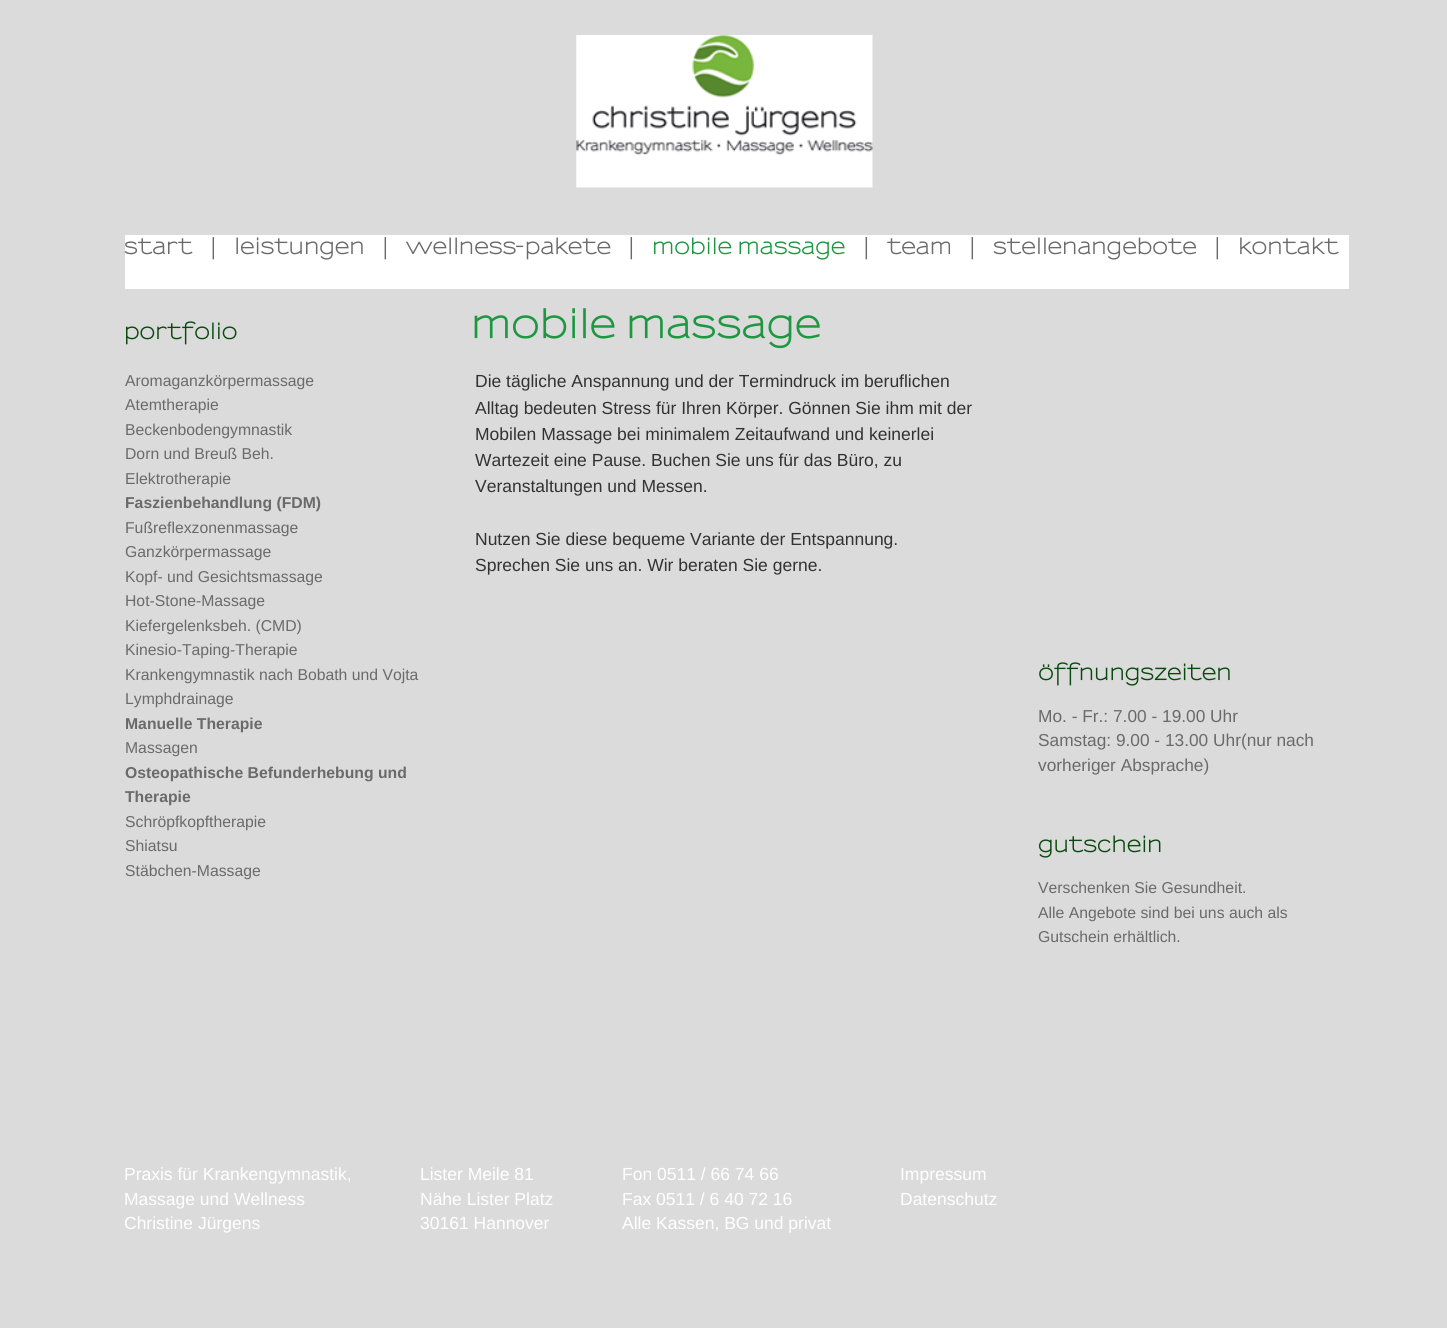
#include <cairo/cairo.h>
#include <math.h>
#include <stddef.h>


static void draw_image(cairo_t *cr, const char *path, double x, double y, double w, double h) {
  cairo_surface_t *image = cairo_image_surface_create_from_png(path);
  cairo_save(cr);
  cairo_set_source_surface(cr, image, x, y);
  cairo_rectangle(cr, x, y, w, h);
  cairo_fill(cr);
  cairo_restore(cr);
  cairo_surface_destroy(image);
}

static void draw(cairo_t *cr) {
  cairo_set_source_rgb(cr, 219 / 255.0, 219 / 255.0, 219 / 255.0);
  cairo_paint(cr);
  draw_image(cr, "images/1.png", 576, 35, 297, 153);
  cairo_set_source_rgb(cr, 1, 1, 1);
  cairo_rectangle(cr, 125, 235, 1224, 54);
  cairo_fill(cr);
  cairo_select_font_face(cr, "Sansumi", CAIRO_FONT_SLANT_NORMAL, CAIRO_FONT_WEIGHT_BOLD);
  cairo_set_font_size(cr, 21.25);
  cairo_set_source_rgb(cr, 106 / 255.0, 106 / 255.0, 106 / 255.0);
  cairo_move_to(cr, 124, 254);
  cairo_show_text(cr, "start");
  cairo_move_to(cr, 207, 254);
  cairo_show_text(cr, "|");
  cairo_move_to(cr, 234, 254);
  cairo_show_text(cr, "leistungen");
  cairo_move_to(cr, 379, 254);
  cairo_show_text(cr, "|");
  cairo_move_to(cr, 406, 254);
  cairo_show_text(cr, "wellness-pakete");
  cairo_move_to(cr, 625, 254);
  cairo_show_text(cr, "|");
  cairo_set_source_rgb(cr, 30 / 255.0, 151 / 255.0, 65 / 255.0);
  cairo_move_to(cr, 652, 254);
  cairo_show_text(cr, "mobile massage");
  cairo_set_source_rgb(cr, 106 / 255.0, 106 / 255.0, 106 / 255.0);
  cairo_move_to(cr, 860, 254);
  cairo_show_text(cr, "|");
  cairo_move_to(cr, 887, 254);
  cairo_show_text(cr, "team");
  cairo_move_to(cr, 966, 254);
  cairo_show_text(cr, "|");
  cairo_move_to(cr, 993, 254);
  cairo_show_text(cr, "stellenangebote");
  cairo_move_to(cr, 1211, 254);
  cairo_show_text(cr, "|");
  cairo_move_to(cr, 1238, 254);
  cairo_show_text(cr, "kontakt");
  cairo_set_source_rgb(cr, 8 / 255.0, 73 / 255.0, 13 / 255.0);
  cairo_move_to(cr, 124, 339);
  cairo_show_text(cr, "portfolio");
  cairo_select_font_face(cr, "Liberation Sans", CAIRO_FONT_SLANT_NORMAL, CAIRO_FONT_WEIGHT_NORMAL);
  cairo_set_font_size(cr, 15.75);
  cairo_set_source_rgb(cr, 106 / 255.0, 106 / 255.0, 106 / 255.0);
  cairo_move_to(cr, 125, 386);
  cairo_show_text(cr, "Aromaganzkörpermassage");
  cairo_move_to(cr, 125, 410);
  cairo_show_text(cr, "Atemtherapie");
  cairo_move_to(cr, 125, 435);
  cairo_show_text(cr, "Beckenbodengymnastik");
  cairo_move_to(cr, 125, 459);
  cairo_show_text(cr, "Dorn und Breuß Beh.");
  cairo_move_to(cr, 125, 484);
  cairo_show_text(cr, "Elektrotherapie");
  cairo_select_font_face(cr, "Liberation Sans", CAIRO_FONT_SLANT_NORMAL, CAIRO_FONT_WEIGHT_BOLD);
  cairo_move_to(cr, 125, 508);
  cairo_show_text(cr, "Faszienbehandlung (FDM)");
  cairo_select_font_face(cr, "Liberation Sans", CAIRO_FONT_SLANT_NORMAL, CAIRO_FONT_WEIGHT_NORMAL);
  cairo_move_to(cr, 125, 533);
  cairo_show_text(cr, "Fußreflexzonenmassage");
  cairo_move_to(cr, 125, 557);
  cairo_show_text(cr, "Ganzkörpermassage");
  cairo_move_to(cr, 125, 582);
  cairo_show_text(cr, "Kopf- und Gesichtsmassage");
  cairo_move_to(cr, 125, 606);
  cairo_show_text(cr, "Hot-Stone-Massage");
  cairo_move_to(cr, 125, 631);
  cairo_show_text(cr, "Kiefergelenksbeh. (CMD)");
  cairo_move_to(cr, 125, 655);
  cairo_show_text(cr, "Kinesio-Taping-Therapie");
  cairo_move_to(cr, 125, 680);
  cairo_show_text(cr, "Krankengymnastik nach Bobath und Vojta");
  cairo_move_to(cr, 125, 704);
  cairo_show_text(cr, "Lymphdrainage");
  cairo_select_font_face(cr, "Liberation Sans", CAIRO_FONT_SLANT_NORMAL, CAIRO_FONT_WEIGHT_BOLD);
  cairo_move_to(cr, 125, 729);
  cairo_show_text(cr, "Manuelle Therapie");
  cairo_select_font_face(cr, "Liberation Sans", CAIRO_FONT_SLANT_NORMAL, CAIRO_FONT_WEIGHT_NORMAL);
  cairo_move_to(cr, 125, 753);
  cairo_show_text(cr, "Massagen");
  cairo_select_font_face(cr, "Liberation Sans", CAIRO_FONT_SLANT_NORMAL, CAIRO_FONT_WEIGHT_BOLD);
  cairo_move_to(cr, 125, 778);
  cairo_show_text(cr, "Osteopathische Befunderhebung und");
  cairo_move_to(cr, 125, 802);
  cairo_show_text(cr, "Therapie");
  cairo_select_font_face(cr, "Liberation Sans", CAIRO_FONT_SLANT_NORMAL, CAIRO_FONT_WEIGHT_NORMAL);
  cairo_move_to(cr, 125, 827);
  cairo_show_text(cr, "Schröpfkopftherapie");
  cairo_move_to(cr, 125, 851);
  cairo_show_text(cr, "Shiatsu");
  cairo_move_to(cr, 125, 876);
  cairo_show_text(cr, "Stäbchen-Massage");
  cairo_select_font_face(cr, "Sansumi", CAIRO_FONT_SLANT_NORMAL, CAIRO_FONT_WEIGHT_BOLD);
  cairo_set_font_size(cr, 38.5);
  cairo_set_source_rgb(cr, 30 / 255.0, 151 / 255.0, 65 / 255.0);
  cairo_move_to(cr, 471, 338);
  cairo_show_text(cr, "mobile massage");
  cairo_select_font_face(cr, "Liberation Sans", CAIRO_FONT_SLANT_NORMAL, CAIRO_FONT_WEIGHT_NORMAL);
  cairo_set_font_size(cr, 17.5);
  cairo_set_source_rgb(cr, 50 / 255.0, 50 / 255.0, 50 / 255.0);
  cairo_move_to(cr, 475, 387);
  cairo_show_text(cr, "Die tägliche Anspannung und der Termindruck im beruflichen");
  cairo_move_to(cr, 475, 414);
  cairo_show_text(cr, "Alltag bedeuten Stress für Ihren Körper. Gönnen Sie ihm mit der");
  cairo_move_to(cr, 475, 440);
  cairo_show_text(cr, "Mobilen Massage bei minimalem Zeitaufwand und keinerlei");
  cairo_move_to(cr, 475, 466);
  cairo_show_text(cr, "Wartezeit eine Pause. Buchen Sie uns für das Büro, zu");
  cairo_move_to(cr, 475, 492);
  cairo_show_text(cr, "Veranstaltungen und Messen.");
  cairo_move_to(cr, 475, 545);
  cairo_show_text(cr, "Nutzen Sie diese bequeme Variante der Entspannung.");
  cairo_move_to(cr, 475, 571);
  cairo_show_text(cr, "Sprechen Sie uns an. Wir beraten Sie gerne.");
  cairo_select_font_face(cr, "Sansumi", CAIRO_FONT_SLANT_NORMAL, CAIRO_FONT_WEIGHT_BOLD);
  cairo_set_font_size(cr, 21.25);
  cairo_set_source_rgb(cr, 8 / 255.0, 73 / 255.0, 13 / 255.0);
  cairo_move_to(cr, 1038, 680);
  cairo_show_text(cr, "öffnungszeiten");
  cairo_select_font_face(cr, "Liberation Sans", CAIRO_FONT_SLANT_NORMAL, CAIRO_FONT_WEIGHT_NORMAL);
  cairo_set_font_size(cr, 17.3);
  cairo_set_source_rgb(cr, 106 / 255.0, 106 / 255.0, 106 / 255.0);
  cairo_move_to(cr, 1038, 722);
  cairo_show_text(cr, "Mo. - Fr.: 7.00 - 19.00 Uhr");
  cairo_move_to(cr, 1038, 746);
  cairo_show_text(cr, "Samstag: 9.00 - 13.00 Uhr(nur nach");
  cairo_move_to(cr, 1038, 771);
  cairo_show_text(cr, "vorheriger Absprache)");
  cairo_select_font_face(cr, "Sansumi", CAIRO_FONT_SLANT_NORMAL, CAIRO_FONT_WEIGHT_BOLD);
  cairo_set_font_size(cr, 21.25);
  cairo_set_source_rgb(cr, 8 / 255.0, 73 / 255.0, 13 / 255.0);
  cairo_move_to(cr, 1038, 852);
  cairo_show_text(cr, "gutschein");
  cairo_select_font_face(cr, "Liberation Sans", CAIRO_FONT_SLANT_NORMAL, CAIRO_FONT_WEIGHT_NORMAL);
  cairo_set_font_size(cr, 15.75);
  cairo_set_source_rgb(cr, 106 / 255.0, 106 / 255.0, 106 / 255.0);
  cairo_move_to(cr, 1038, 893);
  cairo_show_text(cr, "Verschenken Sie Gesundheit.");
  cairo_move_to(cr, 1038, 918);
  cairo_show_text(cr, "Alle Angebote sind bei uns auch als");
  cairo_move_to(cr, 1038, 942);
  cairo_show_text(cr, "Gutschein erhältlich.");
  cairo_set_font_size(cr, 17.5);
  cairo_set_source_rgb(cr, 1, 1, 1);
  cairo_move_to(cr, 124, 1180);
  cairo_show_text(cr, "Praxis für Krankengymnastik,");
  cairo_move_to(cr, 124, 1205);
  cairo_show_text(cr, "Massage und Wellness");
  cairo_move_to(cr, 124, 1229);
  cairo_show_text(cr, "Christine Jürgens");
  cairo_move_to(cr, 420, 1180);
  cairo_show_text(cr, "Lister Meile 81");
  cairo_move_to(cr, 420, 1205);
  cairo_show_text(cr, "Nähe Lister Platz");
  cairo_move_to(cr, 420, 1229);
  cairo_show_text(cr, "30161 Hannover");
  cairo_move_to(cr, 622, 1180);
  cairo_show_text(cr, "Fon 0511 / 66 74 66");
  cairo_move_to(cr, 622, 1205);
  cairo_show_text(cr, "Fax 0511 / 6 40 72 16");
  cairo_move_to(cr, 622, 1229);
  cairo_show_text(cr, "Alle Kassen, BG und privat");
  cairo_move_to(cr, 900, 1180);
  cairo_show_text(cr, "Impressum");
  cairo_move_to(cr, 900, 1205);
  cairo_show_text(cr, "Datenschutz");
}

int main(void) {
  cairo_surface_t *surface = cairo_image_surface_create(CAIRO_FORMAT_RGB24, 1447, 1328);
  cairo_t *cr = cairo_create(surface);
  cairo_font_options_t *options = cairo_font_options_create();
  cairo_font_options_set_hint_metrics(options, CAIRO_HINT_METRICS_OFF);
  cairo_font_options_set_hint_style(options, CAIRO_HINT_STYLE_NONE);
  cairo_set_font_options(cr, options);
  cairo_set_miter_limit(cr, 4);
  draw(cr);
  cairo_surface_write_to_png(surface, "out.png");
  cairo_font_options_destroy(options);
  cairo_destroy(cr);
  cairo_surface_destroy(surface);
  return 0;
}
